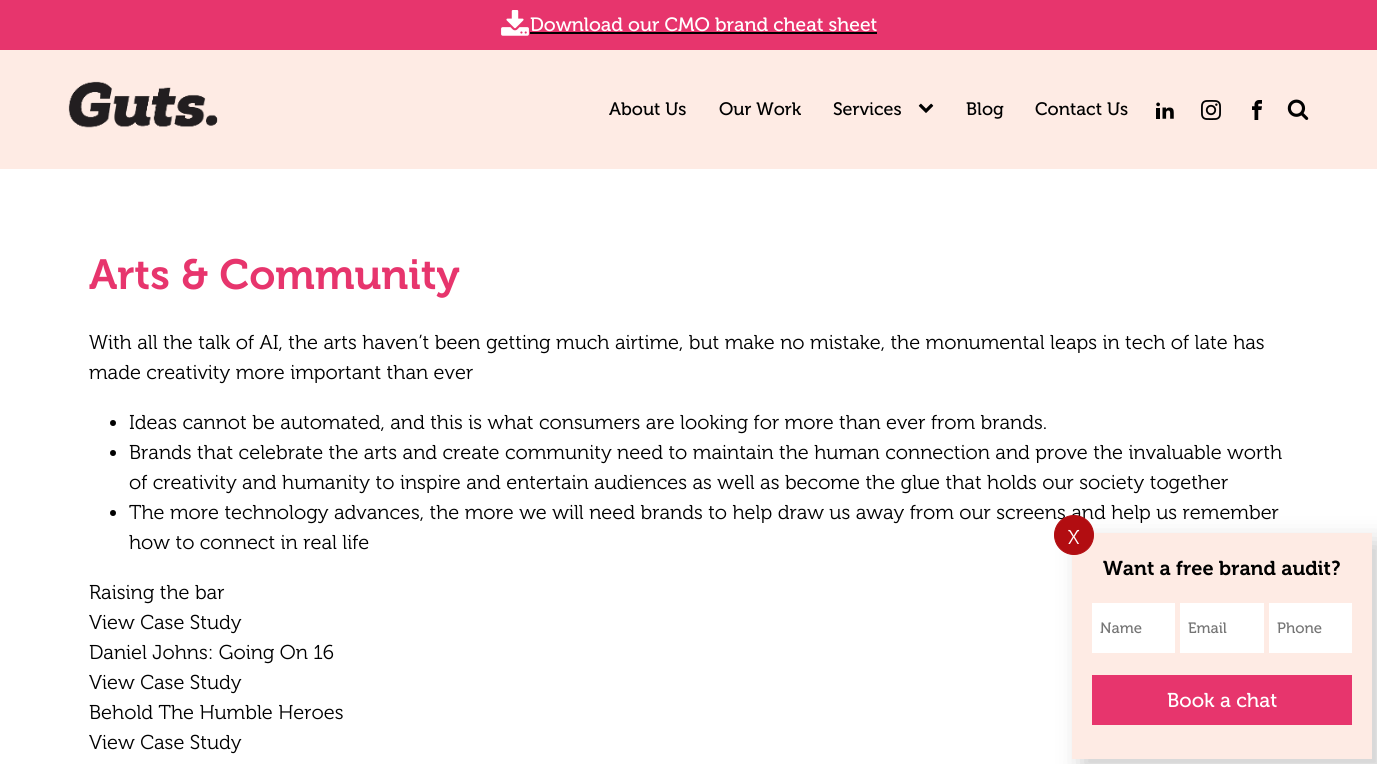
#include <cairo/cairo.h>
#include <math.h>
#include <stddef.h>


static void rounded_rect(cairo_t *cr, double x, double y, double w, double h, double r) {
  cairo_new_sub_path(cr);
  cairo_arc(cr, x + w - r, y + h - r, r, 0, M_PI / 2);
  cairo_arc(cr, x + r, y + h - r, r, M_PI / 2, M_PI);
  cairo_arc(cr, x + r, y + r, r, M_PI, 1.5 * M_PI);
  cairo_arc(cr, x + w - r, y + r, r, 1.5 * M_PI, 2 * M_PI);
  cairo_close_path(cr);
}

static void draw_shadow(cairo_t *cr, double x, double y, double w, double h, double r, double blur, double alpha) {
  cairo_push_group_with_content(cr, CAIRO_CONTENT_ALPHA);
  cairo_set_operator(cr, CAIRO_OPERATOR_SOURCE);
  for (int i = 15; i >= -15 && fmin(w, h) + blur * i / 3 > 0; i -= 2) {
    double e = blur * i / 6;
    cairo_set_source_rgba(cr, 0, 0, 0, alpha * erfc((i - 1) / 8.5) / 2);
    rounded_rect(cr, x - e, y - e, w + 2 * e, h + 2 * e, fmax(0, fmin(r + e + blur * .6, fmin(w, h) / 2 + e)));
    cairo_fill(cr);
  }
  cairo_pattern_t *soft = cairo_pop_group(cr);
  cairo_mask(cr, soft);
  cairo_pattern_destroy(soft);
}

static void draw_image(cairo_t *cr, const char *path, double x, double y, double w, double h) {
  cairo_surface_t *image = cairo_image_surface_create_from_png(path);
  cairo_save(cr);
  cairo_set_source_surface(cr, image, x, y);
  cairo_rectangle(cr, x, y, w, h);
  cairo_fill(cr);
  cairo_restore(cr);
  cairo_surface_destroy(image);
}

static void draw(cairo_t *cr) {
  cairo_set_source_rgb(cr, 1, 1, 1);
  cairo_paint(cr);
  cairo_set_source_rgb(cr, 231 / 255.0, 53 / 255.0, 109 / 255.0);
  cairo_rectangle(cr, 0, 0, 1377, 50);
  cairo_fill(cr);
  draw_image(cr, "images/1.png", 501, 10, 28, 26);
  cairo_set_source_rgb(cr, 0, 0, 0);
  cairo_rectangle(cr, 530, 32, 347, 2);
  cairo_fill(cr);
  cairo_set_source_rgb(cr, 254 / 255.0, 235 / 255.0, 228 / 255.0);
  cairo_rectangle(cr, 0, 50, 1377, 119);
  cairo_fill(cr);
  draw_image(cr, "images/2.png", 68, 81, 150, 47);
  draw_image(cr, "images/3.png", 918, 103, 16, 10);
  draw_image(cr, "images/4.png", 1156, 102, 18, 17);
  draw_image(cr, "images/5.png", 1201, 100, 20, 20);
  draw_image(cr, "images/6.png", 1252, 100, 10, 20);
  draw_image(cr, "images/7.png", 1287, 99, 22, 21);
  cairo_set_source_rgb(cr, 0, 0, 0);
  cairo_arc(cr, 113, 423, 3, 0, 2 * M_PI);
  cairo_fill(cr);
  cairo_arc(cr, 113, 453, 3, 0, 2 * M_PI);
  cairo_fill(cr);
  cairo_arc(cr, 113, 513, 3, 0, 2 * M_PI);
  cairo_fill(cr);
  cairo_set_source_rgb(cr, 0, 0, 0);
  draw_shadow(cr, 1082, 543, 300, 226, 0, 12.5, 0.2);
  cairo_set_source_rgb(cr, 254 / 255.0, 235 / 255.0, 228 / 255.0);
  cairo_rectangle(cr, 1072, 533, 300, 226);
  cairo_fill(cr);
  cairo_set_source_rgb(cr, 1, 1, 1);
  cairo_rectangle(cr, 1092, 603, 83, 50);
  cairo_fill(cr);
  cairo_rectangle(cr, 1180, 603, 84, 50);
  cairo_fill(cr);
  cairo_rectangle(cr, 1269, 603, 83, 50);
  cairo_fill(cr);
  cairo_set_source_rgb(cr, 231 / 255.0, 53 / 255.0, 109 / 255.0);
  cairo_rectangle(cr, 1092, 675, 260, 50);
  cairo_fill(cr);
  cairo_select_font_face(cr, "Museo", CAIRO_FONT_SLANT_NORMAL, CAIRO_FONT_WEIGHT_NORMAL);
  cairo_set_font_size(cr, 19.25);
  cairo_set_source_rgb(cr, 1, 1, 1);
  cairo_move_to(cr, 530, 31);
  cairo_show_text(cr, "Download our CMO brand cheat sheet");
  cairo_set_font_size(cr, 18);
  cairo_set_source_rgb(cr, 0, 0, 0);
  cairo_move_to(cr, 609, 115);
  cairo_show_text(cr, "About Us");
  cairo_move_to(cr, 719, 115);
  cairo_show_text(cr, "Our Work");
  cairo_move_to(cr, 833, 115);
  cairo_show_text(cr, "Services");
  cairo_move_to(cr, 966, 115);
  cairo_show_text(cr, "Blog");
  cairo_move_to(cr, 1035, 115);
  cairo_show_text(cr, "Contact Us");
  cairo_select_font_face(cr, "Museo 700 SemiBold", CAIRO_FONT_SLANT_NORMAL, CAIRO_FONT_WEIGHT_NORMAL);
  cairo_set_font_size(cr, 42);
  cairo_set_source_rgb(cr, 231 / 255.0, 53 / 255.0, 109 / 255.0);
  cairo_move_to(cr, 89, 289);
  cairo_show_text(cr, "Arts & Community");
  cairo_select_font_face(cr, "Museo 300 Light", CAIRO_FONT_SLANT_NORMAL, CAIRO_FONT_WEIGHT_NORMAL);
  cairo_set_font_size(cr, 20);
  cairo_set_source_rgb(cr, 0, 0, 0);
  cairo_move_to(cr, 89, 349);
  cairo_show_text(cr, "With all the talk of AI, the arts haven’t been getting much airtime, but make no mistake, the monumental leaps in tech of late has");
  cairo_move_to(cr, 89, 379);
  cairo_show_text(cr, "made creativity more important than ever");
  cairo_move_to(cr, 129, 429);
  cairo_show_text(cr, "Ideas cannot be automated, and this is what consumers are looking for more than ever from brands.");
  cairo_move_to(cr, 129, 459);
  cairo_show_text(cr, "Brands that celebrate the arts and create community need to maintain the human connection and prove the invaluable worth");
  cairo_move_to(cr, 129, 489);
  cairo_show_text(cr, "of creativity and humanity to inspire and entertain audiences as well as become the glue that holds our society together");
  cairo_move_to(cr, 129, 519);
  cairo_show_text(cr, "The more technology advances, the more we will need brands to help draw us away from our screens and help us remember");
  cairo_move_to(cr, 129, 549);
  cairo_show_text(cr, "how to connect in real life");
  cairo_move_to(cr, 89, 599);
  cairo_show_text(cr, "Raising the bar");
  cairo_move_to(cr, 89, 629);
  cairo_show_text(cr, "View Case Study");
  cairo_move_to(cr, 89, 659);
  cairo_show_text(cr, "Daniel Johns: Going On 16");
  cairo_move_to(cr, 89, 689);
  cairo_show_text(cr, "View Case Study");
  cairo_move_to(cr, 89, 719);
  cairo_show_text(cr, "Behold The Humble Heroes");
  cairo_move_to(cr, 89, 749);
  cairo_show_text(cr, "View Case Study");
  cairo_set_source_rgb(cr, 178 / 255.0, 13 / 255.0, 17 / 255.0);
  cairo_new_path(cr);
  cairo_arc(cr, 1074, 535, 19.5, 0, 2 * M_PI);
  cairo_fill_preserve(cr);
  cairo_set_line_width(cr, 1);
  cairo_stroke(cr);
  cairo_set_source_rgb(cr, 1, 1, 1);
  cairo_move_to(cr, 1068, 544);
  cairo_show_text(cr, "X");
  cairo_select_font_face(cr, "Museo 700 SemiBold", CAIRO_FONT_SLANT_NORMAL, CAIRO_FONT_WEIGHT_NORMAL);
  cairo_set_source_rgb(cr, 0, 0, 0);
  cairo_move_to(cr, 1103, 575);
  cairo_show_text(cr, "Want a free brand audit?");
  cairo_select_font_face(cr, "Museo", CAIRO_FONT_SLANT_NORMAL, CAIRO_FONT_WEIGHT_NORMAL);
  cairo_set_font_size(cr, 15);
  cairo_set_source_rgb(cr, 117 / 255.0, 117 / 255.0, 117 / 255.0);
  cairo_move_to(cr, 1100, 633);
  cairo_show_text(cr, "Name");
  cairo_move_to(cr, 1188, 633);
  cairo_show_text(cr, "Email");
  cairo_move_to(cr, 1277, 633);
  cairo_show_text(cr, "Phone");
  cairo_set_font_size(cr, 20);
  cairo_set_source_rgb(cr, 1, 1, 1);
  cairo_move_to(cr, 1167, 707);
  cairo_show_text(cr, "Book a chat");
}

int main(void) {
  cairo_surface_t *surface = cairo_image_surface_create(CAIRO_FORMAT_RGB24, 1377, 764);
  cairo_t *cr = cairo_create(surface);
  cairo_font_options_t *options = cairo_font_options_create();
  cairo_font_options_set_hint_metrics(options, CAIRO_HINT_METRICS_OFF);
  cairo_font_options_set_hint_style(options, CAIRO_HINT_STYLE_NONE);
  cairo_set_font_options(cr, options);
  cairo_set_miter_limit(cr, 4);
  draw(cr);
  cairo_surface_write_to_png(surface, "out.png");
  cairo_font_options_destroy(options);
  cairo_destroy(cr);
  cairo_surface_destroy(surface);
  return 0;
}
